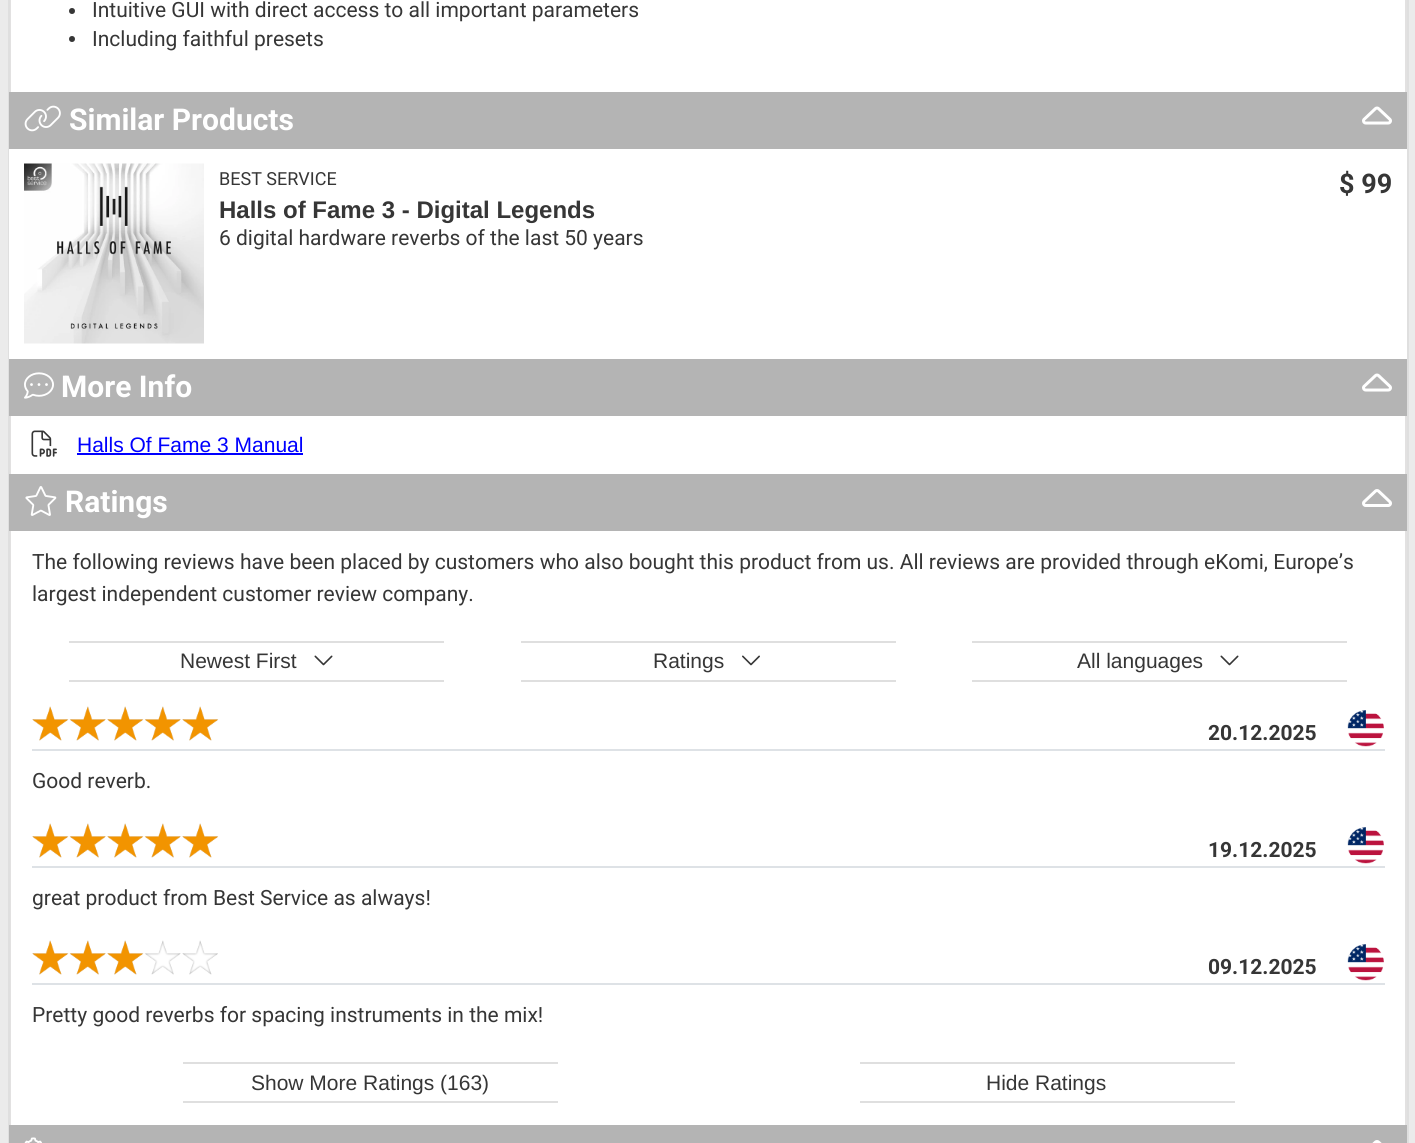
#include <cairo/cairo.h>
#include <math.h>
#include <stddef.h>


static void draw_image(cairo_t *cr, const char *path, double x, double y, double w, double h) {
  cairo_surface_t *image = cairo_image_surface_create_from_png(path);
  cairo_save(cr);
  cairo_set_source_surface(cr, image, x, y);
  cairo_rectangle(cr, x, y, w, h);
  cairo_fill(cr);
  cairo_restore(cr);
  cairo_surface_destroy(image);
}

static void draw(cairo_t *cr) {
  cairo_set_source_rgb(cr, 235 / 255.0, 235 / 255.0, 235 / 255.0);
  cairo_paint(cr);
  cairo_set_source_rgb(cr, 1, 1, 1);
  cairo_rectangle(cr, 11, 0, 1394, 1125);
  cairo_fill(cr);
  cairo_rectangle(cr, 10, -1, 1396, 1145);
  cairo_set_source_rgb(cr, 226 / 255.0, 225 / 255.0, 225 / 255.0);
  cairo_stroke(cr);
  cairo_rectangle(cr, 9, -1, 1399, 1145);
  cairo_set_source_rgb(cr, 223 / 255.0, 223 / 255.0, 223 / 255.0);
  cairo_stroke(cr);
  cairo_set_source_rgb(cr, 54 / 255.0, 54 / 255.0, 54 / 255.0);
  cairo_arc(cr, 72, 11, 3, 0, 2 * M_PI);
  cairo_fill(cr);
  cairo_arc(cr, 72, 39, 3, 0, 2 * M_PI);
  cairo_fill(cr);
  cairo_set_source_rgb(cr, 180 / 255.0, 180 / 255.0, 180 / 255.0);
  cairo_rectangle(cr, 9, 92, 1398, 57);
  cairo_fill(cr);
  draw_image(cr, "images/1.png", 24, 105, 37, 27);
  draw_image(cr, "images/2.png", 1362, 106, 30, 19);
  cairo_set_source_rgb(cr, 1, 1, 1);
  cairo_rectangle(cr, 9, 149, 1398, 210);
  cairo_fill(cr);
  draw_image(cr, "images/3.png", 24, 163, 180, 181);
  cairo_set_source_rgb(cr, 180 / 255.0, 180 / 255.0, 180 / 255.0);
  cairo_rectangle(cr, 9, 359, 1398, 57);
  cairo_fill(cr);
  draw_image(cr, "images/4.png", 24, 372, 30, 27);
  draw_image(cr, "images/2.png", 1362, 373, 30, 19);
  draw_image(cr, "images/5.png", 31, 430, 26, 27);
  cairo_set_source_rgb(cr, 0, 0, 1);
  cairo_rectangle(cr, 77, 453, 226, 2);
  cairo_fill(cr);
  cairo_set_source_rgb(cr, 180 / 255.0, 180 / 255.0, 180 / 255.0);
  cairo_rectangle(cr, 9, 474, 1398, 57);
  cairo_fill(cr);
  draw_image(cr, "images/6.png", 25, 486, 32, 30);
  draw_image(cr, "images/7.png", 1362, 489, 30, 18);
  cairo_set_source_rgb(cr, 223 / 255.0, 223 / 255.0, 223 / 255.0);
  cairo_rectangle(cr, 69, 641, 375, 2);
  cairo_fill(cr);
  cairo_rectangle(cr, 69, 680, 375, 2);
  cairo_fill(cr);
  draw_image(cr, "images/8.png", 314, 655, 19, 11);
  cairo_rectangle(cr, 521, 641, 375, 2);
  cairo_fill(cr);
  cairo_rectangle(cr, 521, 680, 375, 2);
  cairo_fill(cr);
  draw_image(cr, "images/9.png", 742, 655, 18, 11);
  cairo_rectangle(cr, 972, 641, 375, 2);
  cairo_fill(cr);
  cairo_rectangle(cr, 972, 680, 375, 2);
  cairo_fill(cr);
  draw_image(cr, "images/8.png", 1220, 655, 19, 11);
  cairo_set_source_rgb(cr, 222 / 255.0, 226 / 255.0, 230 / 255.0);
  cairo_rectangle(cr, 32, 749, 1353, 2);
  cairo_fill(cr);
  draw_image(cr, "images/10.png", 32, 706, 186, 35);
  draw_image(cr, "images/11.png", 32, 706, 187, 35);
  draw_image(cr, "images/12.png", 1347, 710, 37, 37);
  cairo_rectangle(cr, 32, 866, 1353, 2);
  cairo_fill(cr);
  draw_image(cr, "images/10.png", 32, 823, 186, 35);
  draw_image(cr, "images/11.png", 32, 823, 187, 35);
  draw_image(cr, "images/12.png", 1347, 827, 37, 37);
  cairo_rectangle(cr, 32, 983, 1353, 2);
  cairo_fill(cr);
  draw_image(cr, "images/10.png", 32, 940, 186, 35);
  draw_image(cr, "images/13.png", 32, 940, 112, 35);
  draw_image(cr, "images/12.png", 1347, 944, 37, 37);
  cairo_set_source_rgb(cr, 223 / 255.0, 223 / 255.0, 223 / 255.0);
  cairo_rectangle(cr, 183, 1062, 375, 2);
  cairo_fill(cr);
  cairo_rectangle(cr, 183, 1101, 375, 2);
  cairo_fill(cr);
  cairo_rectangle(cr, 860, 1062, 375, 2);
  cairo_fill(cr);
  cairo_rectangle(cr, 860, 1101, 375, 2);
  cairo_fill(cr);
  cairo_set_source_rgb(cr, 180 / 255.0, 180 / 255.0, 180 / 255.0);
  cairo_rectangle(cr, 9, 1125, 1398, 18);
  cairo_fill(cr);
  draw_image(cr, "images/14.png", 24, 1137, 18, 6);
  draw_image(cr, "images/15.png", 1372, 1140, 10, 3);
  cairo_select_font_face(cr, "Roboto", CAIRO_FONT_SLANT_NORMAL, CAIRO_FONT_WEIGHT_NORMAL);
  cairo_set_font_size(cr, 21);
  cairo_set_source_rgb(cr, 54 / 255.0, 54 / 255.0, 54 / 255.0);
  cairo_move_to(cr, 92, 17);
  cairo_show_text(cr, "Intuitive GUI with direct access to all important parameters");
  cairo_move_to(cr, 92, 46);
  cairo_show_text(cr, "Including faithful presets");
  cairo_select_font_face(cr, "Roboto", CAIRO_FONT_SLANT_NORMAL, CAIRO_FONT_WEIGHT_BOLD);
  cairo_set_font_size(cr, 30);
  cairo_set_source_rgb(cr, 1, 1, 1);
  cairo_move_to(cr, 69, 130);
  cairo_show_text(cr, "Similar Products");
  cairo_select_font_face(cr, "Roboto", CAIRO_FONT_SLANT_NORMAL, CAIRO_FONT_WEIGHT_NORMAL);
  cairo_set_font_size(cr, 18);
  cairo_set_source_rgb(cr, 54 / 255.0, 54 / 255.0, 54 / 255.0);
  cairo_move_to(cr, 219, 185);
  cairo_show_text(cr, "BEST SERVICE");
  cairo_select_font_face(cr, "Liberation Sans", CAIRO_FONT_SLANT_NORMAL, CAIRO_FONT_WEIGHT_BOLD);
  cairo_set_font_size(cr, 24);
  cairo_move_to(cr, 219, 218);
  cairo_show_text(cr, "Halls of Fame 3 - Digital Legends");
  cairo_select_font_face(cr, "Roboto", CAIRO_FONT_SLANT_NORMAL, CAIRO_FONT_WEIGHT_NORMAL);
  cairo_set_font_size(cr, 21);
  cairo_move_to(cr, 219, 245);
  cairo_show_text(cr, "6 digital hardware reverbs of the last 50 years");
  cairo_select_font_face(cr, "Roboto", CAIRO_FONT_SLANT_NORMAL, CAIRO_FONT_WEIGHT_BOLD);
  cairo_set_font_size(cr, 27);
  cairo_move_to(cr, 1339, 193);
  cairo_show_text(cr, "$ 99");
  cairo_set_font_size(cr, 30);
  cairo_set_source_rgb(cr, 1, 1, 1);
  cairo_move_to(cr, 61, 397);
  cairo_show_text(cr, "More Info");
  cairo_select_font_face(cr, "Liberation Sans", CAIRO_FONT_SLANT_NORMAL, CAIRO_FONT_WEIGHT_NORMAL);
  cairo_set_font_size(cr, 21);
  cairo_set_source_rgb(cr, 0, 0, 1);
  cairo_move_to(cr, 77, 452);
  cairo_show_text(cr, "Halls Of Fame 3 Manual");
  cairo_select_font_face(cr, "Roboto", CAIRO_FONT_SLANT_NORMAL, CAIRO_FONT_WEIGHT_BOLD);
  cairo_set_font_size(cr, 30);
  cairo_set_source_rgb(cr, 1, 1, 1);
  cairo_move_to(cr, 65, 512);
  cairo_show_text(cr, "Ratings");
  cairo_select_font_face(cr, "Roboto", CAIRO_FONT_SLANT_NORMAL, CAIRO_FONT_WEIGHT_NORMAL);
  cairo_set_font_size(cr, 21);
  cairo_set_source_rgb(cr, 54 / 255.0, 54 / 255.0, 54 / 255.0);
  cairo_move_to(cr, 32, 569);
  cairo_show_text(cr, "The following reviews have been placed by customers who also bought this product from us. All reviews are provided through eKomi, Europe’s");
  cairo_move_to(cr, 32, 601);
  cairo_show_text(cr, "largest independent customer review company.");
  cairo_select_font_face(cr, "Liberation Sans", CAIRO_FONT_SLANT_NORMAL, CAIRO_FONT_WEIGHT_NORMAL);
  cairo_move_to(cr, 180, 668);
  cairo_show_text(cr, "Newest First");
  cairo_move_to(cr, 653, 668);
  cairo_show_text(cr, "Ratings");
  cairo_move_to(cr, 1077, 668);
  cairo_show_text(cr, "All languages");
  cairo_select_font_face(cr, "Roboto", CAIRO_FONT_SLANT_NORMAL, CAIRO_FONT_WEIGHT_BOLD);
  cairo_move_to(cr, 1208, 740);
  cairo_show_text(cr, "20.12.2025");
  cairo_select_font_face(cr, "Roboto", CAIRO_FONT_SLANT_NORMAL, CAIRO_FONT_WEIGHT_NORMAL);
  cairo_move_to(cr, 32, 788);
  cairo_show_text(cr, "Good reverb.");
  cairo_select_font_face(cr, "Roboto", CAIRO_FONT_SLANT_NORMAL, CAIRO_FONT_WEIGHT_BOLD);
  cairo_move_to(cr, 1208, 857);
  cairo_show_text(cr, "19.12.2025");
  cairo_select_font_face(cr, "Roboto", CAIRO_FONT_SLANT_NORMAL, CAIRO_FONT_WEIGHT_NORMAL);
  cairo_move_to(cr, 32, 905);
  cairo_show_text(cr, "great product from Best Service as always!");
  cairo_select_font_face(cr, "Roboto", CAIRO_FONT_SLANT_NORMAL, CAIRO_FONT_WEIGHT_BOLD);
  cairo_move_to(cr, 1208, 974);
  cairo_show_text(cr, "09.12.2025");
  cairo_select_font_face(cr, "Roboto", CAIRO_FONT_SLANT_NORMAL, CAIRO_FONT_WEIGHT_NORMAL);
  cairo_move_to(cr, 32, 1022);
  cairo_show_text(cr, "Pretty good reverbs for spacing instruments in the mix!");
  cairo_select_font_face(cr, "Liberation Sans", CAIRO_FONT_SLANT_NORMAL, CAIRO_FONT_WEIGHT_NORMAL);
  cairo_move_to(cr, 251, 1090);
  cairo_show_text(cr, "Show More Ratings (163)");
  cairo_move_to(cr, 986, 1090);
  cairo_show_text(cr, "Hide Ratings");
}

int main(void) {
  cairo_surface_t *surface = cairo_image_surface_create(CAIRO_FORMAT_RGB24, 1415, 1143);
  cairo_t *cr = cairo_create(surface);
  cairo_font_options_t *options = cairo_font_options_create();
  cairo_font_options_set_hint_metrics(options, CAIRO_HINT_METRICS_OFF);
  cairo_font_options_set_hint_style(options, CAIRO_HINT_STYLE_NONE);
  cairo_set_font_options(cr, options);
  cairo_set_miter_limit(cr, 4);
  draw(cr);
  cairo_surface_write_to_png(surface, "out.png");
  cairo_font_options_destroy(options);
  cairo_destroy(cr);
  cairo_surface_destroy(surface);
  return 0;
}
